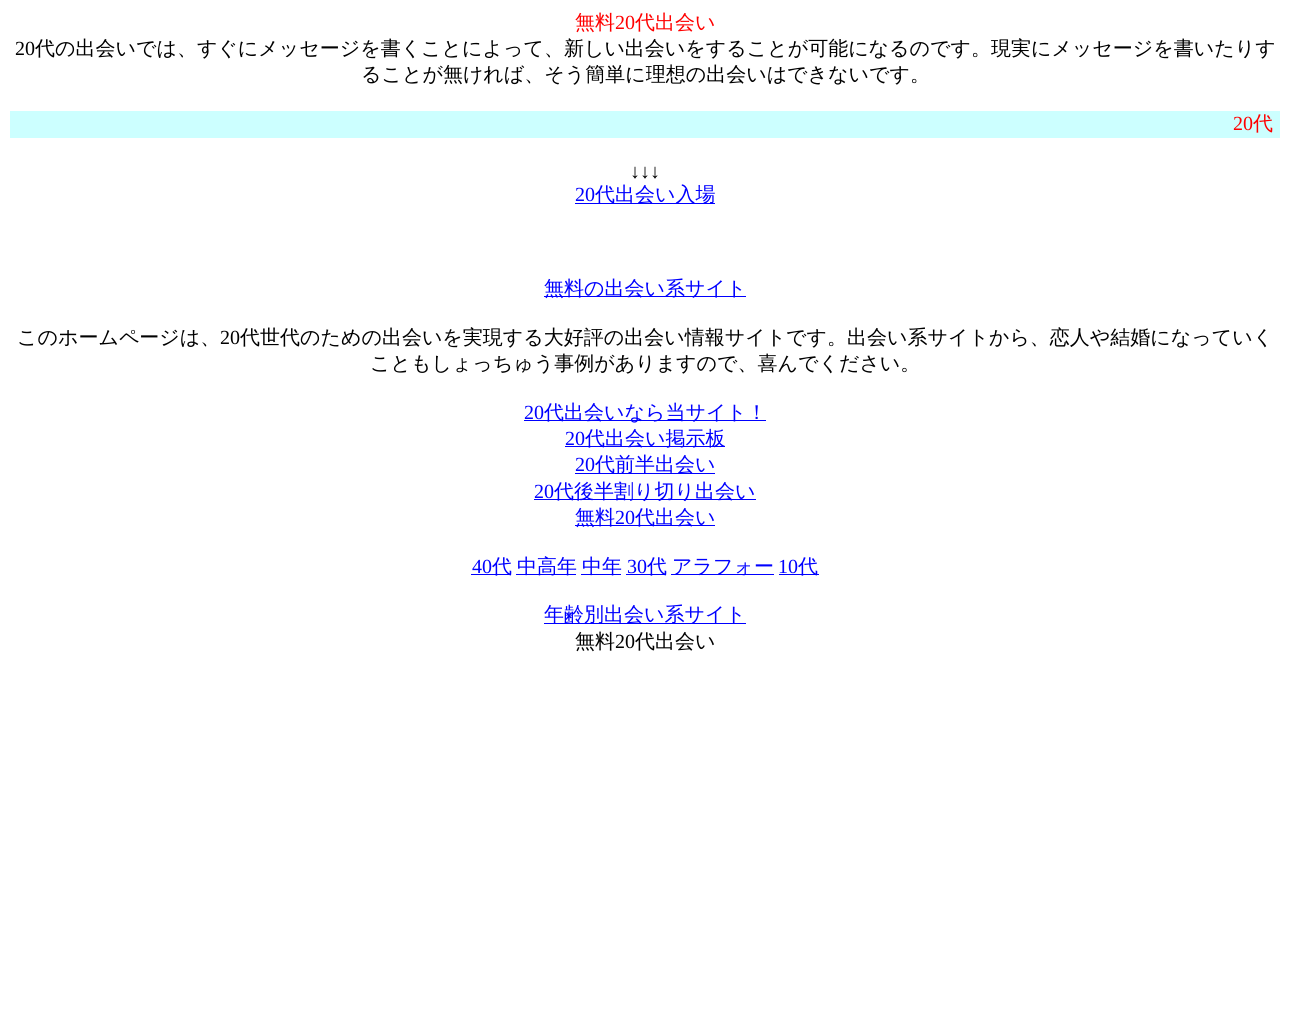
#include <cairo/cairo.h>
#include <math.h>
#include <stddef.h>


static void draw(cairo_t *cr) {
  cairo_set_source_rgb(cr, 1, 1, 1);
  cairo_paint(cr);
  cairo_set_source_rgb(cr, 204 / 255.0, 1, 1);
  cairo_rectangle(cr, 10, 111, 1270, 27);
  cairo_fill(cr);
  cairo_set_source_rgb(cr, 0, 0, 1);
  cairo_rectangle(cr, 575, 203, 140, 1);
  cairo_fill(cr);
  cairo_rectangle(cr, 544, 296, 202, 1);
  cairo_fill(cr);
  cairo_rectangle(cr, 524, 420, 242, 1);
  cairo_fill(cr);
  cairo_rectangle(cr, 565, 446, 160, 1);
  cairo_fill(cr);
  cairo_rectangle(cr, 575, 473, 140, 1);
  cairo_fill(cr);
  cairo_rectangle(cr, 534, 499, 222, 1);
  cairo_fill(cr);
  cairo_rectangle(cr, 575, 525, 140, 1);
  cairo_fill(cr);
  cairo_rectangle(cr, 471, 574, 40, 1);
  cairo_fill(cr);
  cairo_rectangle(cr, 516, 574, 60, 1);
  cairo_fill(cr);
  cairo_rectangle(cr, 581, 574, 40, 1);
  cairo_fill(cr);
  cairo_rectangle(cr, 626, 574, 40, 1);
  cairo_fill(cr);
  cairo_rectangle(cr, 671, 574, 103, 1);
  cairo_fill(cr);
  cairo_rectangle(cr, 779, 574, 40, 1);
  cairo_fill(cr);
  cairo_rectangle(cr, 544, 623, 202, 1);
  cairo_fill(cr);
  cairo_select_font_face(cr, "WenQuanYi Zen Hei Medium", CAIRO_FONT_SLANT_NORMAL, CAIRO_FONT_WEIGHT_NORMAL);
  cairo_set_font_size(cr, 20);
  cairo_set_source_rgb(cr, 1, 0, 0);
  cairo_move_to(cr, 575, 29);
  cairo_show_text(cr, "無料");
  cairo_select_font_face(cr, "Liberation Serif", CAIRO_FONT_SLANT_NORMAL, CAIRO_FONT_WEIGHT_NORMAL);
  cairo_move_to(cr, 615, 29);
  cairo_show_text(cr, "20");
  cairo_select_font_face(cr, "WenQuanYi Zen Hei Medium", CAIRO_FONT_SLANT_NORMAL, CAIRO_FONT_WEIGHT_NORMAL);
  cairo_move_to(cr, 635, 29);
  cairo_show_text(cr, "代出会い");
  cairo_select_font_face(cr, "Liberation Serif", CAIRO_FONT_SLANT_NORMAL, CAIRO_FONT_WEIGHT_NORMAL);
  cairo_set_source_rgb(cr, 0, 0, 0);
  cairo_move_to(cr, 15, 55);
  cairo_show_text(cr, "20");
  cairo_select_font_face(cr, "WenQuanYi Zen Hei Medium", CAIRO_FONT_SLANT_NORMAL, CAIRO_FONT_WEIGHT_NORMAL);
  cairo_move_to(cr, 35, 55);
  cairo_show_text(cr, "代の出会いでは、すぐにメッセージを書くことによって、新しい出会いをすることが可能になるのです。現実にメッセージを書いたりす");
  cairo_move_to(cr, 361, 81);
  cairo_show_text(cr, "ることが無ければ、そう簡単に理想の出会いはできないです。");
  cairo_select_font_face(cr, "Liberation Serif", CAIRO_FONT_SLANT_NORMAL, CAIRO_FONT_WEIGHT_NORMAL);
  cairo_set_source_rgb(cr, 1, 0, 0);
  cairo_move_to(cr, 1233, 130);
  cairo_show_text(cr, "20");
  cairo_select_font_face(cr, "WenQuanYi Zen Hei Medium", CAIRO_FONT_SLANT_NORMAL, CAIRO_FONT_WEIGHT_NORMAL);
  cairo_move_to(cr, 1253, 130);
  cairo_show_text(cr, "代");
  cairo_select_font_face(cr, "Liberation Serif", CAIRO_FONT_SLANT_NORMAL, CAIRO_FONT_WEIGHT_NORMAL);
  cairo_set_source_rgb(cr, 0, 0, 0);
  cairo_move_to(cr, 630, 178);
  cairo_show_text(cr, "↓↓↓");
  cairo_set_source_rgb(cr, 0, 0, 1);
  cairo_move_to(cr, 575, 201);
  cairo_show_text(cr, "20");
  cairo_select_font_face(cr, "WenQuanYi Zen Hei Medium", CAIRO_FONT_SLANT_NORMAL, CAIRO_FONT_WEIGHT_NORMAL);
  cairo_move_to(cr, 595, 201);
  cairo_show_text(cr, "代出会い入場");
  cairo_move_to(cr, 544, 295);
  cairo_show_text(cr, "無料の出会い系サイト");
  cairo_set_source_rgb(cr, 0, 0, 0);
  cairo_move_to(cr, 17, 344);
  cairo_show_text(cr, "このホームページは、");
  cairo_select_font_face(cr, "Liberation Serif", CAIRO_FONT_SLANT_NORMAL, CAIRO_FONT_WEIGHT_NORMAL);
  cairo_move_to(cr, 220, 344);
  cairo_show_text(cr, "20");
  cairo_select_font_face(cr, "WenQuanYi Zen Hei Medium", CAIRO_FONT_SLANT_NORMAL, CAIRO_FONT_WEIGHT_NORMAL);
  cairo_move_to(cr, 240, 344);
  cairo_show_text(cr, "代世代のための出会いを実現する大好評の出会い情報サイトです。出会い系サイトから、恋人や結婚になっていく");
  cairo_move_to(cr, 370, 370);
  cairo_show_text(cr, "こともしょっちゅう事例がありますので、喜んでください。");
  cairo_select_font_face(cr, "Liberation Serif", CAIRO_FONT_SLANT_NORMAL, CAIRO_FONT_WEIGHT_NORMAL);
  cairo_set_source_rgb(cr, 0, 0, 1);
  cairo_move_to(cr, 524, 419);
  cairo_show_text(cr, "20");
  cairo_select_font_face(cr, "WenQuanYi Zen Hei Medium", CAIRO_FONT_SLANT_NORMAL, CAIRO_FONT_WEIGHT_NORMAL);
  cairo_move_to(cr, 544, 419);
  cairo_show_text(cr, "代出会いなら当サイト！");
  cairo_select_font_face(cr, "Liberation Serif", CAIRO_FONT_SLANT_NORMAL, CAIRO_FONT_WEIGHT_NORMAL);
  cairo_move_to(cr, 565, 445);
  cairo_show_text(cr, "20");
  cairo_select_font_face(cr, "WenQuanYi Zen Hei Medium", CAIRO_FONT_SLANT_NORMAL, CAIRO_FONT_WEIGHT_NORMAL);
  cairo_move_to(cr, 585, 445);
  cairo_show_text(cr, "代出会い掲示板");
  cairo_select_font_face(cr, "Liberation Serif", CAIRO_FONT_SLANT_NORMAL, CAIRO_FONT_WEIGHT_NORMAL);
  cairo_move_to(cr, 575, 471);
  cairo_show_text(cr, "20");
  cairo_select_font_face(cr, "WenQuanYi Zen Hei Medium", CAIRO_FONT_SLANT_NORMAL, CAIRO_FONT_WEIGHT_NORMAL);
  cairo_move_to(cr, 595, 471);
  cairo_show_text(cr, "代前半出会い");
  cairo_select_font_face(cr, "Liberation Serif", CAIRO_FONT_SLANT_NORMAL, CAIRO_FONT_WEIGHT_NORMAL);
  cairo_move_to(cr, 534, 498);
  cairo_show_text(cr, "20");
  cairo_select_font_face(cr, "WenQuanYi Zen Hei Medium", CAIRO_FONT_SLANT_NORMAL, CAIRO_FONT_WEIGHT_NORMAL);
  cairo_move_to(cr, 554, 498);
  cairo_show_text(cr, "代後半割り切り出会い");
  cairo_move_to(cr, 575, 524);
  cairo_show_text(cr, "無料");
  cairo_select_font_face(cr, "Liberation Serif", CAIRO_FONT_SLANT_NORMAL, CAIRO_FONT_WEIGHT_NORMAL);
  cairo_move_to(cr, 615, 524);
  cairo_show_text(cr, "20");
  cairo_select_font_face(cr, "WenQuanYi Zen Hei Medium", CAIRO_FONT_SLANT_NORMAL, CAIRO_FONT_WEIGHT_NORMAL);
  cairo_move_to(cr, 635, 524);
  cairo_show_text(cr, "代出会い");
  cairo_select_font_face(cr, "Liberation Serif", CAIRO_FONT_SLANT_NORMAL, CAIRO_FONT_WEIGHT_NORMAL);
  cairo_move_to(cr, 472, 573);
  cairo_show_text(cr, "40");
  cairo_select_font_face(cr, "WenQuanYi Zen Hei Medium", CAIRO_FONT_SLANT_NORMAL, CAIRO_FONT_WEIGHT_NORMAL);
  cairo_move_to(cr, 492, 573);
  cairo_show_text(cr, "代");
  cairo_move_to(cr, 517, 573);
  cairo_show_text(cr, "中高年");
  cairo_move_to(cr, 582, 573);
  cairo_show_text(cr, "中年");
  cairo_select_font_face(cr, "Liberation Serif", CAIRO_FONT_SLANT_NORMAL, CAIRO_FONT_WEIGHT_NORMAL);
  cairo_move_to(cr, 627, 573);
  cairo_show_text(cr, "30");
  cairo_select_font_face(cr, "WenQuanYi Zen Hei Medium", CAIRO_FONT_SLANT_NORMAL, CAIRO_FONT_WEIGHT_NORMAL);
  cairo_move_to(cr, 647, 573);
  cairo_show_text(cr, "代");
  cairo_move_to(cr, 672, 573);
  cairo_show_text(cr, "アラフォー");
  cairo_select_font_face(cr, "Liberation Serif", CAIRO_FONT_SLANT_NORMAL, CAIRO_FONT_WEIGHT_NORMAL);
  cairo_move_to(cr, 778, 573);
  cairo_show_text(cr, "10");
  cairo_select_font_face(cr, "WenQuanYi Zen Hei Medium", CAIRO_FONT_SLANT_NORMAL, CAIRO_FONT_WEIGHT_NORMAL);
  cairo_move_to(cr, 798, 573);
  cairo_show_text(cr, "代");
  cairo_move_to(cr, 544, 621);
  cairo_show_text(cr, "年齢別出会い系サイト");
  cairo_set_source_rgb(cr, 0, 0, 0);
  cairo_move_to(cr, 575, 648);
  cairo_show_text(cr, "無料");
  cairo_select_font_face(cr, "Liberation Serif", CAIRO_FONT_SLANT_NORMAL, CAIRO_FONT_WEIGHT_NORMAL);
  cairo_move_to(cr, 615, 648);
  cairo_show_text(cr, "20");
  cairo_select_font_face(cr, "WenQuanYi Zen Hei Medium", CAIRO_FONT_SLANT_NORMAL, CAIRO_FONT_WEIGHT_NORMAL);
  cairo_move_to(cr, 635, 648);
  cairo_show_text(cr, "代出会い");
}

int main(void) {
  cairo_surface_t *surface = cairo_image_surface_create(CAIRO_FORMAT_RGB24, 1290, 1021);
  cairo_t *cr = cairo_create(surface);
  cairo_font_options_t *options = cairo_font_options_create();
  cairo_font_options_set_hint_metrics(options, CAIRO_HINT_METRICS_OFF);
  cairo_font_options_set_hint_style(options, CAIRO_HINT_STYLE_NONE);
  cairo_set_font_options(cr, options);
  cairo_set_miter_limit(cr, 4);
  draw(cr);
  cairo_surface_write_to_png(surface, "out.png");
  cairo_font_options_destroy(options);
  cairo_destroy(cr);
  cairo_surface_destroy(surface);
  return 0;
}
